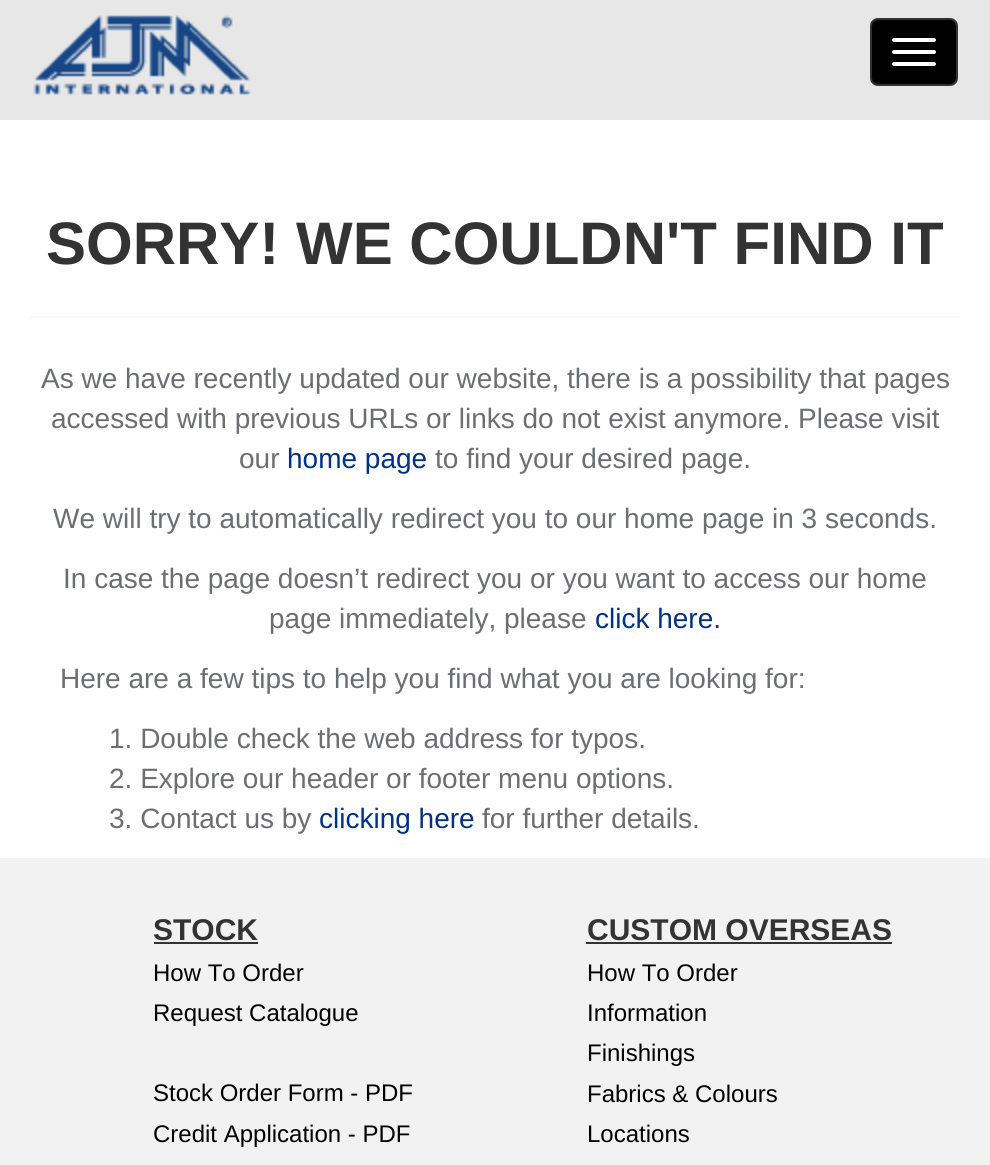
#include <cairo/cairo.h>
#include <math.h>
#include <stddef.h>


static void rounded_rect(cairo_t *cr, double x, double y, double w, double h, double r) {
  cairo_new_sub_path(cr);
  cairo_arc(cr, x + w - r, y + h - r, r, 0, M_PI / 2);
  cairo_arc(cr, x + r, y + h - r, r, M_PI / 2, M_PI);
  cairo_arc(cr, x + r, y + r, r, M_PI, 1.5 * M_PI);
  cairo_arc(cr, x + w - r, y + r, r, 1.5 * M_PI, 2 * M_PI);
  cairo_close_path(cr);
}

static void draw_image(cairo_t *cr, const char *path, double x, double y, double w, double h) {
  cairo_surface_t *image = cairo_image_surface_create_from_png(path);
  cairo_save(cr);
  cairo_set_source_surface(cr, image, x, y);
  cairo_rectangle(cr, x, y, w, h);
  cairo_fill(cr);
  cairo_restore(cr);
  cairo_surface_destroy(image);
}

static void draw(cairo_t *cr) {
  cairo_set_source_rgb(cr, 1, 1, 1);
  cairo_paint(cr);
  cairo_set_source_rgb(cr, 231 / 255.0, 231 / 255.0, 231 / 255.0);
  cairo_rectangle(cr, 0, 0, 990, 120);
  cairo_fill(cr);
  draw_image(cr, "images/1.png", 33, 15, 218, 80);
  cairo_set_source_rgb(cr, 0, 0, 0);
  rounded_rect(cr, 871, 19, 86, 66, 7);
  cairo_fill_preserve(cr);
  cairo_set_source_rgb(cr, 51 / 255.0, 51 / 255.0, 51 / 255.0);
  cairo_stroke(cr);
  cairo_set_source_rgb(cr, 1, 1, 1);
  rounded_rect(cr, 892, 38, 44, 4, 2);
  cairo_fill(cr);
  rounded_rect(cr, 892, 50, 44, 4, 2);
  cairo_fill(cr);
  rounded_rect(cr, 892, 62, 44, 4, 2);
  cairo_fill(cr);
  cairo_set_source_rgb(cr, 247 / 255.0, 247 / 255.0, 247 / 255.0);
  cairo_rectangle(cr, 30, 316, 930, 2);
  cairo_fill(cr);
  cairo_set_source_rgb(cr, 242 / 255.0, 242 / 255.0, 242 / 255.0);
  cairo_rectangle(cr, 0, 858, 990, 307);
  cairo_fill(cr);
  cairo_set_source_rgb(cr, 51 / 255.0, 51 / 255.0, 51 / 255.0);
  cairo_rectangle(cr, 154, 942, 104, 2);
  cairo_fill(cr);
  cairo_rectangle(cr, 586, 942, 306, 2);
  cairo_fill(cr);
  cairo_select_font_face(cr, "Liberation Sans", CAIRO_FONT_SLANT_NORMAL, CAIRO_FONT_WEIGHT_BOLD);
  cairo_set_font_size(cr, 60);
  cairo_move_to(cr, 46, 264);
  cairo_show_text(cr, "SORRY! WE COULDN'T FIND IT");
  cairo_select_font_face(cr, "Liberation Sans", CAIRO_FONT_SLANT_NORMAL, CAIRO_FONT_WEIGHT_NORMAL);
  cairo_set_font_size(cr, 28);
  cairo_set_source_rgb(cr, 109 / 255.0, 110 / 255.0, 113 / 255.0);
  cairo_move_to(cr, 41, 388);
  cairo_show_text(cr, "As we have recently updated our website, there is a possibility that pages");
  cairo_move_to(cr, 51, 428);
  cairo_show_text(cr, "accessed with previous URLs or links do not exist anymore. Please visit");
  cairo_move_to(cr, 239, 468);
  cairo_show_text(cr, "our");
  cairo_set_source_rgb(cr, 0, 49 / 255.0, 137 / 255.0);
  cairo_move_to(cr, 287, 468);
  cairo_show_text(cr, "home page");
  cairo_set_source_rgb(cr, 109 / 255.0, 110 / 255.0, 113 / 255.0);
  cairo_move_to(cr, 435, 468);
  cairo_show_text(cr, "to find your desired page.");
  cairo_move_to(cr, 53, 528);
  cairo_show_text(cr, "We will try to automatically redirect you to our home page in 3 seconds.");
  cairo_move_to(cr, 63, 588);
  cairo_show_text(cr, "In case the page doesn’t redirect you or you want to access our home");
  cairo_move_to(cr, 269, 628);
  cairo_show_text(cr, "page immediately, please");
  cairo_set_source_rgb(cr, 0, 49 / 255.0, 137 / 255.0);
  cairo_move_to(cr, 595, 628);
  cairo_show_text(cr, "click here.");
  cairo_set_source_rgb(cr, 109 / 255.0, 110 / 255.0, 113 / 255.0);
  cairo_move_to(cr, 60, 688);
  cairo_show_text(cr, "Here are a few tips to help you find what you are looking for:");
  cairo_move_to(cr, 109, 748);
  cairo_show_text(cr, "1. Double check the web address for typos.");
  cairo_move_to(cr, 109, 788);
  cairo_show_text(cr, "2. Explore our header or footer menu options.");
  cairo_move_to(cr, 109, 828);
  cairo_show_text(cr, "3. Contact us by");
  cairo_set_source_rgb(cr, 0, 49 / 255.0, 137 / 255.0);
  cairo_move_to(cr, 319, 828);
  cairo_show_text(cr, "clicking here");
  cairo_set_source_rgb(cr, 109 / 255.0, 110 / 255.0, 113 / 255.0);
  cairo_move_to(cr, 482, 828);
  cairo_show_text(cr, "for further details.");
  cairo_select_font_face(cr, "Liberation Sans", CAIRO_FONT_SLANT_NORMAL, CAIRO_FONT_WEIGHT_BOLD);
  cairo_set_font_size(cr, 30);
  cairo_set_source_rgb(cr, 51 / 255.0, 51 / 255.0, 51 / 255.0);
  cairo_move_to(cr, 153, 940);
  cairo_show_text(cr, "STOCK");
  cairo_select_font_face(cr, "Liberation Sans", CAIRO_FONT_SLANT_NORMAL, CAIRO_FONT_WEIGHT_NORMAL);
  cairo_set_font_size(cr, 24);
  cairo_set_source_rgb(cr, 0, 0, 0);
  cairo_move_to(cr, 153, 981);
  cairo_show_text(cr, "How To Order");
  cairo_move_to(cr, 153, 1021);
  cairo_show_text(cr, "Request Catalogue");
  cairo_move_to(cr, 153, 1101);
  cairo_show_text(cr, "Stock Order Form - PDF");
  cairo_move_to(cr, 153, 1142);
  cairo_show_text(cr, "Credit Application - PDF");
  cairo_select_font_face(cr, "Liberation Sans", CAIRO_FONT_SLANT_NORMAL, CAIRO_FONT_WEIGHT_BOLD);
  cairo_set_font_size(cr, 30);
  cairo_set_source_rgb(cr, 51 / 255.0, 51 / 255.0, 51 / 255.0);
  cairo_move_to(cr, 587, 940);
  cairo_show_text(cr, "CUSTOM OVERSEAS");
  cairo_select_font_face(cr, "Liberation Sans", CAIRO_FONT_SLANT_NORMAL, CAIRO_FONT_WEIGHT_NORMAL);
  cairo_set_font_size(cr, 24);
  cairo_set_source_rgb(cr, 0, 0, 0);
  cairo_move_to(cr, 587, 981);
  cairo_show_text(cr, "How To Order");
  cairo_move_to(cr, 587, 1021);
  cairo_show_text(cr, "Information");
  cairo_move_to(cr, 587, 1061);
  cairo_show_text(cr, "Finishings");
  cairo_move_to(cr, 587, 1102);
  cairo_show_text(cr, "Fabrics & Colours");
  cairo_move_to(cr, 587, 1142);
  cairo_show_text(cr, "Locations");
}

int main(void) {
  cairo_surface_t *surface = cairo_image_surface_create(CAIRO_FORMAT_RGB24, 990, 1165);
  cairo_t *cr = cairo_create(surface);
  cairo_font_options_t *options = cairo_font_options_create();
  cairo_font_options_set_hint_metrics(options, CAIRO_HINT_METRICS_OFF);
  cairo_font_options_set_hint_style(options, CAIRO_HINT_STYLE_NONE);
  cairo_set_font_options(cr, options);
  cairo_set_miter_limit(cr, 4);
  draw(cr);
  cairo_surface_write_to_png(surface, "out.png");
  cairo_font_options_destroy(options);
  cairo_destroy(cr);
  cairo_surface_destroy(surface);
  return 0;
}
